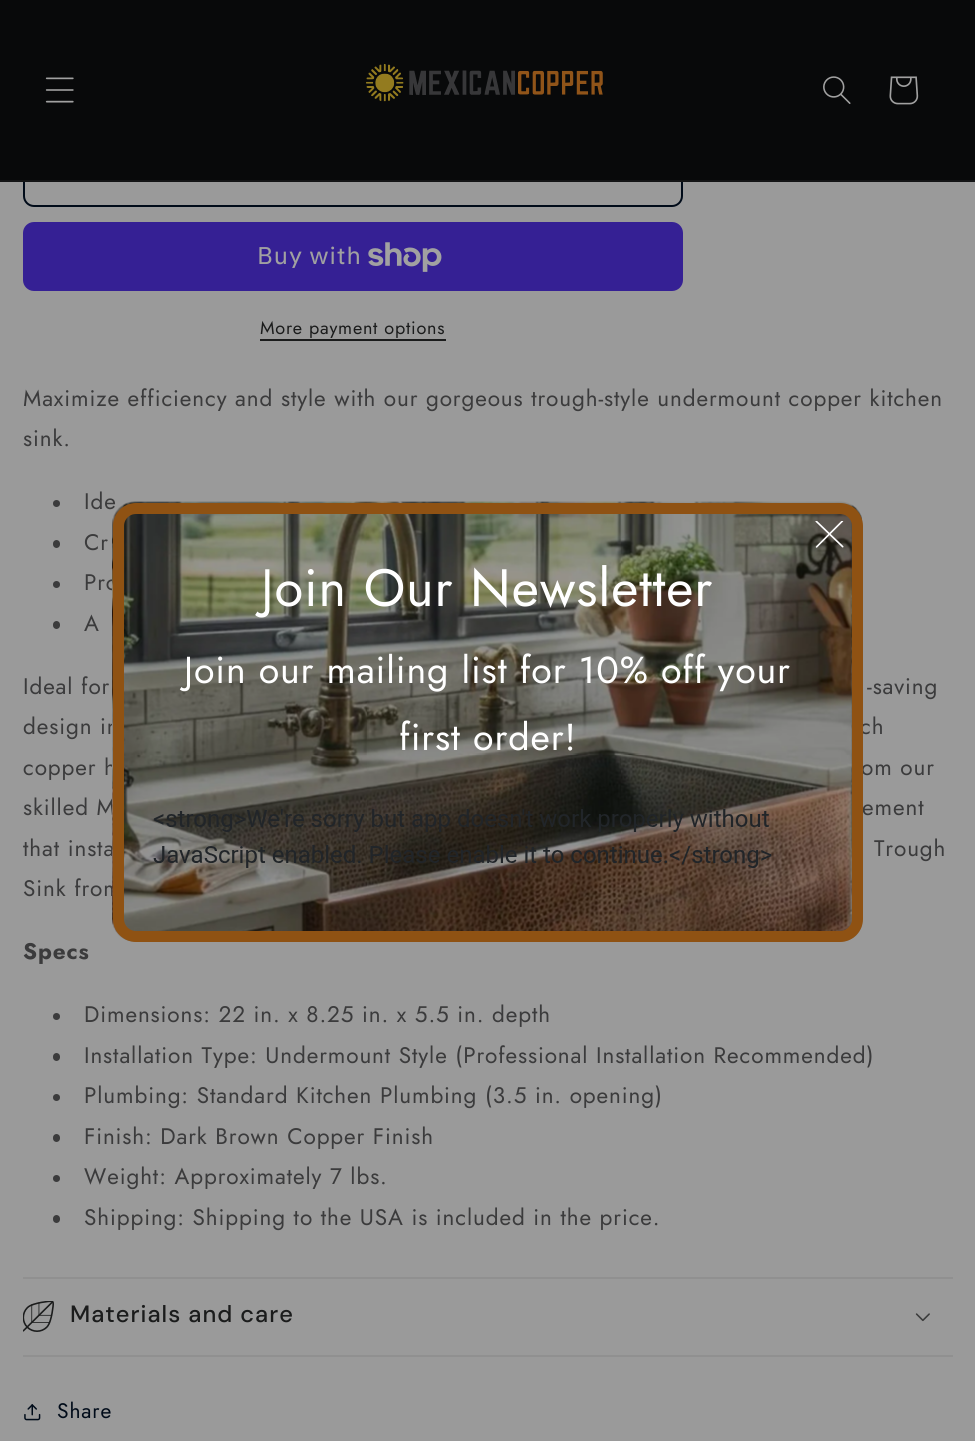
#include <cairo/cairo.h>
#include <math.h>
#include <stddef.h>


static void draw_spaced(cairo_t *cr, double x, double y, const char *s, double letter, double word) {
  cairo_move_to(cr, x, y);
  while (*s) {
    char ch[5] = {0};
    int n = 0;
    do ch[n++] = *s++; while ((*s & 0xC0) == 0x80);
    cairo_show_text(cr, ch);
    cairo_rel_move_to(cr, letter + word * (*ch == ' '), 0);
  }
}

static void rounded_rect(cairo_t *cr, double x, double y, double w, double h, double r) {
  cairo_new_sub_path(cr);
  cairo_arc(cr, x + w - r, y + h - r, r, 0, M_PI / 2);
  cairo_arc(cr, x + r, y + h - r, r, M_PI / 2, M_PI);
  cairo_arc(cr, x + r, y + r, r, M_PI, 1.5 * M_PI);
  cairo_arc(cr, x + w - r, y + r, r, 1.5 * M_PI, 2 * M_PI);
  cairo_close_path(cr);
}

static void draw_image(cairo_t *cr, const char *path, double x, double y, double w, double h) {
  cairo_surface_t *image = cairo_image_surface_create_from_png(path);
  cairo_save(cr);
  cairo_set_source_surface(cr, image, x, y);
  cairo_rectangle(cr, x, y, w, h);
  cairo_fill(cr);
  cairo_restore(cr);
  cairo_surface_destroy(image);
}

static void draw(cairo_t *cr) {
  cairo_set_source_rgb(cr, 154 / 255.0, 154 / 255.0, 154 / 255.0);
  cairo_paint(cr);
  rounded_rect(cr, 24, 138, 658, 68, 10);
  cairo_set_source_rgb(cr, 0, 11 / 255.0, 25 / 255.0);
  cairo_stroke(cr);
  cairo_set_source_rgb(cr, 8 / 255.0, 9 / 255.0, 10 / 255.0);
  cairo_rectangle(cr, 0, 0, 975, 180);
  cairo_fill(cr);
  cairo_set_source_rgb(cr, 20 / 255.0, 21 / 255.0, 22 / 255.0);
  cairo_rectangle(cr, 0, 180, 975, 2);
  cairo_fill(cr);
  draw_image(cr, "images/1.png", 45, 77, 29, 26);
  draw_image(cr, "images/2.png", 366, 64, 237, 38);
  draw_image(cr, "images/3.png", 823, 76, 28, 28);
  draw_image(cr, "images/4.png", 889, 76, 30, 29);
  cairo_set_source_rgb(cr, 53 / 255.0, 32 / 255.0, 148 / 255.0);
  rounded_rect(cr, 23, 222, 660, 69, 11);
  cairo_fill(cr);
  draw_image(cr, "images/5.png", 368, 242, 74, 30);
  cairo_set_source_rgb(cr, 27 / 255.0, 28 / 255.0, 28 / 255.0);
  cairo_rectangle(cr, 260, 339, 186, 2);
  cairo_fill(cr);
  cairo_set_source_rgb(cr, 59 / 255.0, 59 / 255.0, 60 / 255.0);
  cairo_arc(cr, 56.5, 503.5, 3.5, 0, 2 * M_PI);
  cairo_fill(cr);
  rounded_rect(cr, 53, 540, 7, 8, 3.5);
  cairo_fill(cr);
  cairo_arc(cr, 56.5, 584.5, 3.5, 0, 2 * M_PI);
  cairo_fill(cr);
  rounded_rect(cr, 53, 621, 7, 8, 3.5);
  cairo_fill(cr);
  cairo_arc(cr, 56.5, 1016.5, 3.5, 0, 2 * M_PI);
  cairo_fill(cr);
  rounded_rect(cr, 53, 1053, 7, 8, 3.5);
  cairo_fill(cr);
  cairo_arc(cr, 56.5, 1097.5, 3.5, 0, 2 * M_PI);
  cairo_fill(cr);
  rounded_rect(cr, 53, 1134, 7, 8, 3.5);
  cairo_fill(cr);
  cairo_arc(cr, 56.5, 1178.5, 3.5, 0, 2 * M_PI);
  cairo_fill(cr);
  rounded_rect(cr, 53, 1215, 7, 8, 3.5);
  cairo_fill(cr);
  cairo_set_source_rgb(cr, 144 / 255.0, 144 / 255.0, 144 / 255.0);
  cairo_rectangle(cr, 23, 1277, 930, 2);
  cairo_fill(cr);
  cairo_rectangle(cr, 23, 1355, 930, 2);
  cairo_fill(cr);
  draw_image(cr, "images/6.png", 23, 1301, 31, 31);
  draw_image(cr, "images/7.png", 915, 1313, 15, 9);
  draw_image(cr, "images/8.png", 24, 1404, 17, 17);
  cairo_select_font_face(cr, "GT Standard", CAIRO_FONT_SLANT_NORMAL, CAIRO_FONT_WEIGHT_NORMAL);
  cairo_set_font_size(cr, 24);
  cairo_set_source_rgb(cr, 161 / 255.0, 161 / 255.0, 161 / 255.0);
  draw_spaced(cr, 257, 264, "Buy with", 0.9, 0);
  cairo_select_font_face(cr, "Jost", CAIRO_FONT_SLANT_NORMAL, CAIRO_FONT_WEIGHT_NORMAL);
  cairo_set_font_size(cr, 18);
  cairo_set_source_rgb(cr, 27 / 255.0, 28 / 255.0, 28 / 255.0);
  draw_spaced(cr, 260, 334, "More payment options", 0.75, 0);
  cairo_set_font_size(cr, 22.5);
  cairo_set_source_rgb(cr, 59 / 255.0, 59 / 255.0, 60 / 255.0);
  draw_spaced(cr, 23, 406, "Maximize efficiency and style with our gorgeous trough-style undermount copper kitchen", 0.9, 0);
  draw_spaced(cr, 23, 446, "sink.", 0.9, 0);
  draw_spaced(cr, 84, 509, "Ide", 0.9, 0);
  draw_spaced(cr, 84, 550, "Cr", 0.9, 0);
  draw_spaced(cr, 84, 590, "Pro", 0.9, 0);
  draw_spaced(cr, 84, 631, "A", 0.9, 0);
  draw_spaced(cr, 23, 694, "Ideal for", 0.9, 0);
  draw_spaced(cr, 867, 694, "-saving", 0.9, 0);
  draw_spaced(cr, 23, 734, "design in", 0.9, 0);
  draw_spaced(cr, 860, 734, "ch", 0.9, 0);
  draw_spaced(cr, 23, 775, "copper h", 0.9, 0);
  draw_spaced(cr, 861, 775, "om our", 0.9, 0);
  draw_spaced(cr, 23, 815, "skilled M", 0.9, 0);
  draw_spaced(cr, 862, 815, "ement", 0.9, 0);
  draw_spaced(cr, 23, 856, "that insta", 0.9, 0);
  draw_spaced(cr, 874, 856, "Trough", 0.9, 0);
  draw_spaced(cr, 23, 896, "Sink from", 0.9, 0);
  cairo_select_font_face(cr, "Jost", CAIRO_FONT_SLANT_NORMAL, CAIRO_FONT_WEIGHT_BOLD);
  draw_spaced(cr, 23, 959, "Specs", 0.9, 0);
  cairo_select_font_face(cr, "Jost", CAIRO_FONT_SLANT_NORMAL, CAIRO_FONT_WEIGHT_NORMAL);
  draw_spaced(cr, 84, 1022, "Dimensions: 22 in. x 8.25 in. x 5.5 in. depth", 0.9, 0);
  draw_spaced(cr, 84, 1063, "Installation Type: Undermount Style (Professional Installation Recommended)", 0.9, 0);
  draw_spaced(cr, 84, 1103, "Plumbing: Standard Kitchen Plumbing (3.5 in. opening)", 0.9, 0);
  draw_spaced(cr, 84, 1144, "Finish: Dark Brown Copper Finish", 0.9, 0);
  draw_spaced(cr, 84, 1184, "Weight: Approximately 7 lbs.", 0.9, 0);
  draw_spaced(cr, 84, 1225, "Shipping: Shipping to the USA is included in the price.", 0.9, 0);
  cairo_select_font_face(cr, "DM Sans Medium", CAIRO_FONT_SLANT_NORMAL, CAIRO_FONT_WEIGHT_NORMAL);
  cairo_set_font_size(cr, 23.6);
  cairo_set_source_rgb(cr, 27 / 255.0, 28 / 255.0, 28 / 255.0);
  draw_spaced(cr, 70, 1322, "Materials and care", 1, 0);
  cairo_select_font_face(cr, "Jost", CAIRO_FONT_SLANT_NORMAL, CAIRO_FONT_WEIGHT_NORMAL);
  cairo_set_font_size(cr, 21);
  cairo_set_source_rgb(cr, 0, 11 / 255.0, 25 / 255.0);
  draw_spaced(cr, 57, 1418, "Share", 0.9, 0);
  draw_image(cr, "images/9.png", 112, 501, 750, 441);
  rounded_rect(cr, 118.5, 508.5, 739, 428, 17.5);
  cairo_set_source_rgb(cr, 143 / 255.0, 82 / 255.0, 19 / 255.0);
  cairo_set_line_width(cr, 11);
  cairo_stroke(cr);
  draw_image(cr, "images/10.png", 815, 521, 29, 27);
  cairo_set_font_size(cr, 52.5);
  cairo_set_source_rgb(cr, 1, 1, 1);
  draw_spaced(cr, 261, 606, "Join Our Newsletter", 0.9, 0);
  cairo_set_font_size(cr, 37.5);
  draw_spaced(cr, 184, 683, "Join our mailing list for 10% off your", 0.9, 0);
  draw_spaced(cr, 399, 750, "first order!", 0.9, 0);
  draw_image(cr, "images/11.png", 153, 809, 619, 59);
}

int main(void) {
  cairo_surface_t *surface = cairo_image_surface_create(CAIRO_FORMAT_RGB24, 975, 1441);
  cairo_t *cr = cairo_create(surface);
  cairo_font_options_t *options = cairo_font_options_create();
  cairo_font_options_set_hint_metrics(options, CAIRO_HINT_METRICS_OFF);
  cairo_font_options_set_hint_style(options, CAIRO_HINT_STYLE_NONE);
  cairo_set_font_options(cr, options);
  cairo_set_miter_limit(cr, 4);
  draw(cr);
  cairo_surface_write_to_png(surface, "out.png");
  cairo_font_options_destroy(options);
  cairo_destroy(cr);
  cairo_surface_destroy(surface);
  return 0;
}
